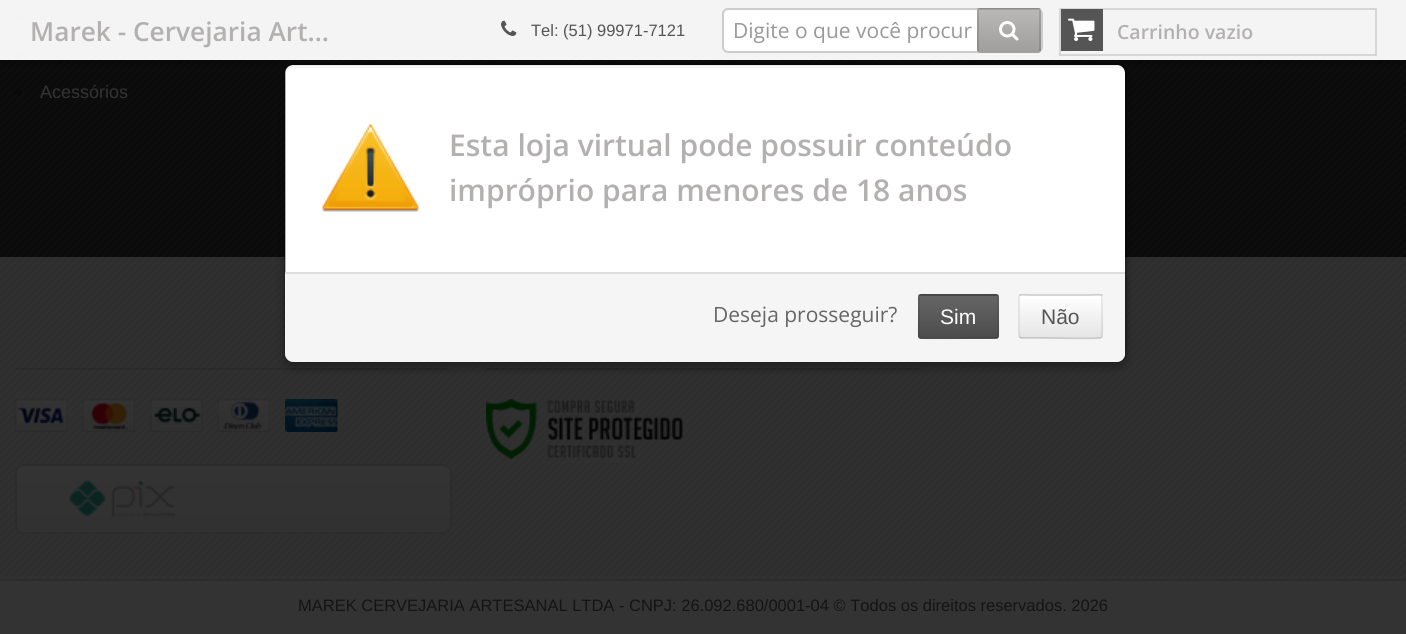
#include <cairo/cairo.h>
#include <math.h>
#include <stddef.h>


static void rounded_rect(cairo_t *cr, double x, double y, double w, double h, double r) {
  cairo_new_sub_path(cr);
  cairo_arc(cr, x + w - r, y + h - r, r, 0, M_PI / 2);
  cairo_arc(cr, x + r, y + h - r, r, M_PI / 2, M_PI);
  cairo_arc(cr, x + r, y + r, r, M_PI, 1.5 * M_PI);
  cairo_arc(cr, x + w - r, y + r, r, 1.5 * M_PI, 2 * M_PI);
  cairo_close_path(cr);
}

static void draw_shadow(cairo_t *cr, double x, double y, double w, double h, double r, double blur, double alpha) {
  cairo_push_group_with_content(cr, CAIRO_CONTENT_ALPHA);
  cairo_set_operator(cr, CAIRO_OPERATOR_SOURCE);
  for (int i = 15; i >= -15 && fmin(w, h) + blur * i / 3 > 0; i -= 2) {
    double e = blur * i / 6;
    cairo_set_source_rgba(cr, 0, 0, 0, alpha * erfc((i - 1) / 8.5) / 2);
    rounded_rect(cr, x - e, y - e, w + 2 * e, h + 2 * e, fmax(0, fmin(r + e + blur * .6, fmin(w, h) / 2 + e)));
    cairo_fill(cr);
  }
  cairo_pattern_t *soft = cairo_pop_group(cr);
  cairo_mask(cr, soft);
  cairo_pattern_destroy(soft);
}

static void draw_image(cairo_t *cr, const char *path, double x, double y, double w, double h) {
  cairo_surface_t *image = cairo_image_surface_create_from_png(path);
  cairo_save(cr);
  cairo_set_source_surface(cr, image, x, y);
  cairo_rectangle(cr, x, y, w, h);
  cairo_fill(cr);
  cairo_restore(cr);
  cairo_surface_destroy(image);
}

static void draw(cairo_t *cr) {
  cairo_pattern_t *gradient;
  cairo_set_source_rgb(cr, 9 / 255.0, 9 / 255.0, 9 / 255.0);
  cairo_paint(cr);
  draw_image(cr, "images/4.png", 0, 0, 1406, 257);
  draw_image(cr, "images/5.png", 15, 13, 9, 10);
  draw_image(cr, "images/6.png", 15, 51, 9, 9);
  cairo_set_source_rgb(cr, 48 / 255.0, 48 / 255.0, 48 / 255.0);
  cairo_rectangle(cr, 0, 257, 1406, 322);
  cairo_fill(cr);
  draw_image(cr, "images/8.png", 0, 256, 1406, 323);
  cairo_set_source_rgba(cr, 0, 0, 0, 0.1);
  cairo_rectangle(cr, 15, 368, 434, 2);
  cairo_fill(cr);
  cairo_rectangle(cr, 486, 368, 435, 2);
  cairo_fill(cr);
  cairo_save(cr);
  cairo_set_fill_rule(cr, CAIRO_FILL_RULE_EVEN_ODD);
  cairo_new_path(cr);
  cairo_move_to(cr, 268, 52);
  cairo_line_to(cr, 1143, 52);
  cairo_line_to(cr, 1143, 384);
  cairo_line_to(cr, 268, 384);
  cairo_close_path(cr);
  cairo_move_to(cr, 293, 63);
  cairo_line_to(cr, 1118, 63);
  cairo_curve_to(cr, 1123, 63, 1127, 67, 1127, 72);
  cairo_line_to(cr, 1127, 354);
  cairo_curve_to(cr, 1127, 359, 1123, 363, 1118, 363);
  cairo_line_to(cr, 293, 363);
  cairo_curve_to(cr, 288, 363, 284, 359, 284, 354);
  cairo_line_to(cr, 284, 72);
  cairo_curve_to(cr, 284, 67, 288, 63, 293, 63);
  cairo_close_path(cr);
  cairo_clip(cr);
  cairo_set_source_rgb(cr, 0, 0, 0);
  draw_shadow(cr, 284, 68, 843, 300, 9, 5, 0.3);
  cairo_restore(cr);
  cairo_set_source_rgb(cr, 1, 1, 1);
  rounded_rect(cr, 285, 65, 840, 297, 8);
  cairo_fill(cr);
  rounded_rect(cr, 285, 64, 841, 298, 8);
  cairo_set_source_rgba(cr, 0, 0, 0, 0.3);
  cairo_stroke(cr);
  cairo_save(cr);
  cairo_rectangle(cr, 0, 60, 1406, 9);
  cairo_clip(cr);
  cairo_set_source_rgb(cr, 0, 0, 0);
  draw_shadow(cr, 0, 0, 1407, 60, 0, 5, 0.5);
  cairo_restore(cr);
  cairo_set_source_rgba(cr, 1, 1, 1, 0.95);
  cairo_rectangle(cr, 0, 0, 1406, 60);
  cairo_fill(cr);
  draw_image(cr, "images/1.png", 501, 20, 16, 16);
  cairo_set_source_rgb(cr, 1, 1, 1);
  rounded_rect(cr, 723, 9, 319, 43, 5);
  cairo_fill_preserve(cr);
  cairo_set_source_rgb(cr, 204 / 255.0, 204 / 255.0, 204 / 255.0);
  cairo_stroke(cr);
  cairo_set_source_rgb(cr, 179 / 255.0, 176 / 255.0, 176 / 255.0);
  rounded_rect(cr, 977, 8, 64, 45, 3);
  cairo_fill(cr);
  gradient = cairo_pattern_create_linear(1009, -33, 1009, 9);
  cairo_pattern_add_color_stop_rgba(gradient, 0, 1, 1, 1, 0.1);
  cairo_pattern_add_color_stop_rgba(gradient, 1, 0, 0, 0, 0.1);
  cairo_set_source(cr, gradient);
  cairo_pattern_destroy(gradient);
  cairo_rectangle(cr, 977, 8, 64, 1);
  cairo_fill(cr);
  gradient = cairo_pattern_create_linear(1009, 9, 1009, 51);
  cairo_pattern_add_color_stop_rgba(gradient, 0, 1, 1, 1, 0.1);
  cairo_pattern_add_color_stop_rgba(gradient, 1, 0, 0, 0, 0.1);
  cairo_set_source(cr, gradient);
  cairo_pattern_destroy(gradient);
  cairo_rectangle(cr, 977, 9, 64, 42);
  cairo_fill(cr);
  gradient = cairo_pattern_create_linear(1009, 51, 1009, 93);
  cairo_pattern_add_color_stop_rgba(gradient, 0, 1, 1, 1, 0.1);
  cairo_pattern_add_color_stop_rgba(gradient, 1, 0, 0, 0, 0.1);
  cairo_set_source(cr, gradient);
  cairo_pattern_destroy(gradient);
  cairo_rectangle(cr, 977, 51, 64, 2);
  cairo_fill(cr);
  rounded_rect(cr, 978, 9, 62, 43, 2);
  cairo_set_source_rgba(cr, 0, 0, 0, 0.13);
  cairo_stroke(cr);
  draw_image(cr, "images/2.png", 999, 21, 20, 20);
  cairo_rectangle(cr, 1060, 9, 316, 46);
  cairo_set_source_rgb(cr, 214 / 255.0, 214 / 255.0, 214 / 255.0);
  cairo_stroke(cr);
  cairo_set_source_rgb(cr, 85 / 255.0, 85 / 255.0, 85 / 255.0);
  cairo_rectangle(cr, 1061, 9, 42, 42);
  cairo_fill(cr);
  draw_image(cr, "images/3.png", 1068, 18, 27, 23);
  draw_image(cr, "images/7.png", 15, 88, 9, 10);
  draw_image(cr, "images/9.png", 15, 399, 53, 33);
  draw_image(cr, "images/10.png", 82, 399, 53, 33);
  draw_image(cr, "images/11.png", 150, 399, 53, 33);
  draw_image(cr, "images/12.png", 217, 399, 53, 33);
  draw_image(cr, "images/13.png", 285, 399, 53, 33);
  cairo_save(cr);
  rounded_rect(cr, 15, 464, 437, 70, 9);
  cairo_clip(cr);
  gradient = cairo_pattern_create_linear(233, 465, 233, 533);
  cairo_pattern_add_color_stop_rgba(gradient, 0, 51 / 255.0, 51 / 255.0, 51 / 255.0, 1);
  cairo_pattern_add_color_stop_rgba(gradient, 1, 49 / 255.0, 49 / 255.0, 49 / 255.0, 1);
  cairo_set_source(cr, gradient);
  cairo_pattern_destroy(gradient);
  cairo_rectangle(cr, 15, 465, 437, 68);
  cairo_fill(cr);
  cairo_restore(cr);
  rounded_rect(cr, 16, 465, 435, 68, 8);
  cairo_set_source_rgb(cr, 44 / 255.0, 44 / 255.0, 44 / 255.0);
  cairo_stroke(cr);
  draw_image(cr, "images/14.png", 69, 480, 107, 38);
  draw_image(cr, "images/15.png", 486, 399, 197, 60);
  cairo_set_source_rgb(cr, 51 / 255.0, 51 / 255.0, 51 / 255.0);
  cairo_rectangle(cr, 0, 581, 1406, 53);
  cairo_fill(cr);
  cairo_set_source_rgb(cr, 44 / 255.0, 44 / 255.0, 44 / 255.0);
  cairo_rectangle(cr, 0, 579, 1406, 2);
  cairo_fill(cr);
  draw_image(cr, "images/16.png", 322, 124, 97, 88);
  cairo_set_source_rgb(cr, 245 / 255.0, 245 / 255.0, 245 / 255.0);
  cairo_new_path(cr);
  cairo_move_to(cr, 285, 272);
  cairo_line_to(cr, 1125, 272);
  cairo_line_to(cr, 1125, 353);
  cairo_curve_to(cr, 1125, 358, 1121, 362, 1116, 362);
  cairo_line_to(cr, 294, 362);
  cairo_curve_to(cr, 289, 362, 285, 358, 285, 353);
  cairo_close_path(cr);
  cairo_fill(cr);
  cairo_set_source_rgb(cr, 221 / 255.0, 221 / 255.0, 221 / 255.0);
  cairo_rectangle(cr, 285, 272, 840, 2);
  cairo_fill(cr);
  cairo_set_source_rgb(cr, 85 / 255.0, 85 / 255.0, 85 / 255.0);
  rounded_rect(cr, 918, 294, 81, 45, 3);
  cairo_fill(cr);
  gradient = cairo_pattern_create_linear(959, 254, 959, 296);
  cairo_pattern_add_color_stop_rgba(gradient, 0, 1, 1, 1, 0.1);
  cairo_pattern_add_color_stop_rgba(gradient, 1, 0, 0, 0, 0.1);
  cairo_set_source(cr, gradient);
  cairo_pattern_destroy(gradient);
  cairo_rectangle(cr, 918, 294, 81, 2);
  cairo_fill(cr);
  gradient = cairo_pattern_create_linear(959, 296, 959, 338);
  cairo_pattern_add_color_stop_rgba(gradient, 0, 1, 1, 1, 0.1);
  cairo_pattern_add_color_stop_rgba(gradient, 1, 0, 0, 0, 0.1);
  cairo_set_source(cr, gradient);
  cairo_pattern_destroy(gradient);
  cairo_rectangle(cr, 918, 296, 81, 42);
  cairo_fill(cr);
  gradient = cairo_pattern_create_linear(959, 338, 959, 380);
  cairo_pattern_add_color_stop_rgba(gradient, 0, 1, 1, 1, 0.1);
  cairo_pattern_add_color_stop_rgba(gradient, 1, 0, 0, 0, 0.1);
  cairo_set_source(cr, gradient);
  cairo_pattern_destroy(gradient);
  cairo_rectangle(cr, 918, 338, 81, 1);
  cairo_fill(cr);
  cairo_new_path(cr);
  cairo_move_to(cr, 997.5, 337.5);
  cairo_line_to(cr, 996, 338);
  cairo_line_to(cr, 983.5, 338);
  cairo_curve_to(cr, 977, 338, 921.5, 339, 920, 338);
  cairo_line_to(cr, 919.5, 337.5);
  cairo_set_source_rgba(cr, 0, 0, 0, 0.2);
  cairo_set_line_width(cr, 1.5);
  cairo_stroke(cr);
  cairo_new_path(cr);
  cairo_move_to(cr, 919.5, 337.5);
  cairo_curve_to(cr, 917.5, 336, 919, 319.5, 919, 316.5);
  cairo_line_to(cr, 919, 303.5);
  cairo_curve_to(cr, 919, 291.5, 919, 295, 933.5, 295);
  cairo_line_to(cr, 983.5, 295);
  cairo_curve_to(cr, 998, 295, 998, 291.5, 998, 303.5);
  cairo_line_to(cr, 998, 316.5);
  cairo_curve_to(cr, 998, 319.5, 999.5, 336, 997.5, 337.5);
  cairo_set_source_rgba(cr, 0, 0, 0, 0.1);
  cairo_stroke(cr);
  cairo_set_source_rgb(cr, 1, 1, 1);
  rounded_rect(cr, 1019, 294, 84, 45, 3);
  cairo_fill(cr);
  gradient = cairo_pattern_create_linear(1061, 254, 1061, 296);
  cairo_pattern_add_color_stop_rgba(gradient, 0, 1, 1, 1, 0.1);
  cairo_pattern_add_color_stop_rgba(gradient, 1, 0, 0, 0, 0.1);
  cairo_set_source(cr, gradient);
  cairo_pattern_destroy(gradient);
  cairo_rectangle(cr, 1019, 294, 84, 2);
  cairo_fill(cr);
  gradient = cairo_pattern_create_linear(1061, 296, 1061, 338);
  cairo_pattern_add_color_stop_rgba(gradient, 0, 1, 1, 1, 0.1);
  cairo_pattern_add_color_stop_rgba(gradient, 1, 0, 0, 0, 0.1);
  cairo_set_source(cr, gradient);
  cairo_pattern_destroy(gradient);
  cairo_rectangle(cr, 1019, 299, 84, 39);
  cairo_fill(cr);
  cairo_new_path(cr);
  cairo_move_to(cr, 1101, 337.5);
  cairo_line_to(cr, 1100.5, 338);
  cairo_curve_to(cr, 1099, 339, 1041.5, 338, 1034.5, 338);
  cairo_line_to(cr, 1021.5, 338);
  cairo_line_to(cr, 1020, 337.5);
  cairo_set_source_rgba(cr, 0, 0, 0, 0.2);
  cairo_stroke(cr);
  cairo_new_path(cr);
  cairo_move_to(cr, 1020, 337.5);
  cairo_curve_to(cr, 1018, 336, 1019, 319.5, 1019, 316.5);
  cairo_line_to(cr, 1019, 303.5);
  cairo_curve_to(cr, 1019, 291, 1019.5, 295, 1034.5, 295);
  cairo_line_to(cr, 1086.5, 295);
  cairo_curve_to(cr, 1101.5, 295, 1102, 291, 1102, 303.5);
  cairo_line_to(cr, 1102, 316.5);
  cairo_curve_to(cr, 1102, 319.5, 1103, 336, 1101, 337.5);
  cairo_set_source_rgba(cr, 0, 0, 0, 0.1);
  cairo_stroke(cr);
  cairo_select_font_face(cr, "Open Sans SemiBold", CAIRO_FONT_SLANT_NORMAL, CAIRO_FONT_WEIGHT_NORMAL);
  cairo_set_font_size(cr, 26.25);
  cairo_set_source_rgb(cr, 179 / 255.0, 176 / 255.0, 176 / 255.0);
  cairo_move_to(cr, 30, 41);
  cairo_show_text(cr, "Marek - Cervejaria Art…");
  cairo_select_font_face(cr, "Liberation Sans", CAIRO_FONT_SLANT_NORMAL, CAIRO_FONT_WEIGHT_NORMAL);
  cairo_set_font_size(cr, 16.5);
  cairo_set_source_rgb(cr, 85 / 255.0, 85 / 255.0, 85 / 255.0);
  cairo_move_to(cr, 531, 36);
  cairo_show_text(cr, "Tel: (51) 99971-7121");
  cairo_select_font_face(cr, "Open Sans", CAIRO_FONT_SLANT_NORMAL, CAIRO_FONT_WEIGHT_NORMAL);
  cairo_set_font_size(cr, 21);
  cairo_set_source_rgb(cr, 153 / 255.0, 153 / 255.0, 153 / 255.0);
  cairo_move_to(cr, 733, 38);
  cairo_show_text(cr, "Digite o que você procur");
  cairo_select_font_face(cr, "Open Sans SemiBold", CAIRO_FONT_SLANT_NORMAL, CAIRO_FONT_WEIGHT_NORMAL);
  cairo_set_font_size(cr, 19.5);
  cairo_set_source_rgb(cr, 179 / 255.0, 176 / 255.0, 176 / 255.0);
  cairo_move_to(cr, 1117, 39);
  cairo_show_text(cr, "Carrinho vazio");
  cairo_select_font_face(cr, "Liberation Sans", CAIRO_FONT_SLANT_NORMAL, CAIRO_FONT_WEIGHT_NORMAL);
  cairo_set_font_size(cr, 18);
  cairo_set_source_rgb(cr, 51 / 255.0, 51 / 255.0, 51 / 255.0);
  cairo_move_to(cr, 40, 98);
  cairo_show_text(cr, "Acessórios");
  cairo_set_font_size(cr, 16.5);
  cairo_set_source_rgb(cr, 20 / 255.0, 20 / 255.0, 20 / 255.0);
  cairo_move_to(cr, 298, 611);
  cairo_show_text(cr, "MAREK CERVEJARIA ARTESANAL LTDA - CNPJ: 26.092.680/0001-04 © Todos os direitos reservados. 2026");
  cairo_select_font_face(cr, "Open Sans SemiBold", CAIRO_FONT_SLANT_NORMAL, CAIRO_FONT_WEIGHT_NORMAL);
  cairo_set_font_size(cr, 30);
  cairo_set_source_rgb(cr, 179 / 255.0, 176 / 255.0, 176 / 255.0);
  cairo_move_to(cr, 449, 156);
  cairo_show_text(cr, "Esta loja virtual pode possuir conteúdo");
  cairo_move_to(cr, 449, 201);
  cairo_show_text(cr, "impróprio para menores de 18 anos");
  cairo_select_font_face(cr, "Open Sans", CAIRO_FONT_SLANT_NORMAL, CAIRO_FONT_WEIGHT_NORMAL);
  cairo_set_font_size(cr, 21);
  cairo_set_source_rgb(cr, 102 / 255.0, 102 / 255.0, 102 / 255.0);
  cairo_move_to(cr, 713, 322);
  cairo_show_text(cr, "Deseja prosseguir?");
  cairo_select_font_face(cr, "Liberation Sans", CAIRO_FONT_SLANT_NORMAL, CAIRO_FONT_WEIGHT_NORMAL);
  cairo_set_source_rgb(cr, 1, 1, 1);
  cairo_move_to(cr, 940, 324);
  cairo_show_text(cr, "Sim");
  cairo_set_source_rgb(cr, 85 / 255.0, 85 / 255.0, 85 / 255.0);
  cairo_move_to(cr, 1041, 324);
  cairo_show_text(cr, "Não");
}

int main(void) {
  cairo_surface_t *surface = cairo_image_surface_create(CAIRO_FORMAT_RGB24, 1406, 634);
  cairo_t *cr = cairo_create(surface);
  cairo_font_options_t *options = cairo_font_options_create();
  cairo_font_options_set_hint_metrics(options, CAIRO_HINT_METRICS_OFF);
  cairo_font_options_set_hint_style(options, CAIRO_HINT_STYLE_NONE);
  cairo_set_font_options(cr, options);
  cairo_set_miter_limit(cr, 4);
  draw(cr);
  cairo_surface_write_to_png(surface, "out.png");
  cairo_font_options_destroy(options);
  cairo_destroy(cr);
  cairo_surface_destroy(surface);
  return 0;
}
